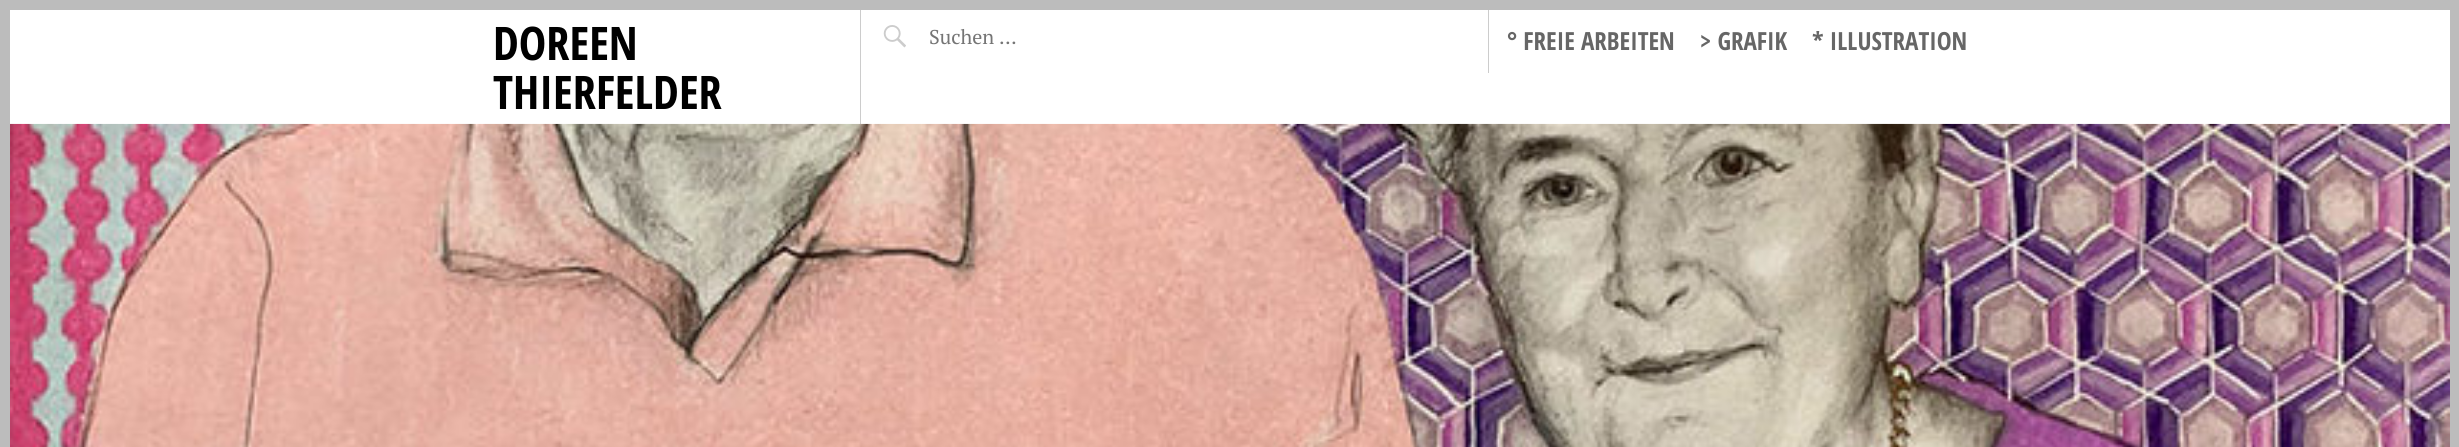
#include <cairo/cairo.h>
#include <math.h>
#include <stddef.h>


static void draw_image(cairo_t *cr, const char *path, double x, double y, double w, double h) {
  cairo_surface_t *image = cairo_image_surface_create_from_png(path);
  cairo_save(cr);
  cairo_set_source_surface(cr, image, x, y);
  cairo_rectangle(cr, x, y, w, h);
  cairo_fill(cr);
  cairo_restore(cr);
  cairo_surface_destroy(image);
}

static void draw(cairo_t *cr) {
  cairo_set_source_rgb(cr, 188 / 255.0, 188 / 255.0, 188 / 255.0);
  cairo_paint(cr);
  cairo_set_source_rgb(cr, 1, 1, 1);
  cairo_rectangle(cr, 10, 10, 2440, 114);
  cairo_fill(cr);
  cairo_set_source_rgb(cr, 204 / 255.0, 204 / 255.0, 204 / 255.0);
  cairo_rectangle(cr, 860, 10, 1, 114);
  cairo_fill(cr);
  draw_image(cr, "images/1.png", 883, 25, 23, 23);
  cairo_rectangle(cr, 1488, 10, 1, 63);
  cairo_fill(cr);
  draw_image(cr, "images/2.png", 10, 123, 2440, 324);
  cairo_select_font_face(cr, "Open Sans Condensed", CAIRO_FONT_SLANT_NORMAL, CAIRO_FONT_WEIGHT_BOLD);
  cairo_set_font_size(cr, 46.25);
  cairo_set_source_rgb(cr, 0, 0, 0);
  cairo_move_to(cr, 493, 60);
  cairo_show_text(cr, "DOREEN");
  cairo_move_to(cr, 493, 109);
  cairo_show_text(cr, "THIERFELDER");
  cairo_select_font_face(cr, "PT Serif", CAIRO_FONT_SLANT_NORMAL, CAIRO_FONT_WEIGHT_NORMAL);
  cairo_set_font_size(cr, 20);
  cairo_set_source_rgb(cr, 117 / 255.0, 117 / 255.0, 117 / 255.0);
  cairo_move_to(cr, 929, 44);
  cairo_show_text(cr, "Suchen …");
  cairo_select_font_face(cr, "Open Sans Condensed", CAIRO_FONT_SLANT_NORMAL, CAIRO_FONT_WEIGHT_BOLD);
  cairo_set_font_size(cr, 25);
  cairo_set_source_rgb(cr, 102 / 255.0, 102 / 255.0, 102 / 255.0);
  cairo_move_to(cr, 1507, 50);
  cairo_show_text(cr, "° FREIE ARBEITEN");
  cairo_move_to(cr, 1700, 50);
  cairo_show_text(cr, "> GRAFIK");
  cairo_move_to(cr, 1812, 50);
  cairo_show_text(cr, "* ILLUSTRATION");
}

int main(void) {
  cairo_surface_t *surface = cairo_image_surface_create(CAIRO_FORMAT_RGB24, 2459, 447);
  cairo_t *cr = cairo_create(surface);
  cairo_font_options_t *options = cairo_font_options_create();
  cairo_font_options_set_hint_metrics(options, CAIRO_HINT_METRICS_OFF);
  cairo_font_options_set_hint_style(options, CAIRO_HINT_STYLE_NONE);
  cairo_set_font_options(cr, options);
  cairo_set_miter_limit(cr, 4);
  draw(cr);
  cairo_surface_write_to_png(surface, "out.png");
  cairo_font_options_destroy(options);
  cairo_destroy(cr);
  cairo_surface_destroy(surface);
  return 0;
}
